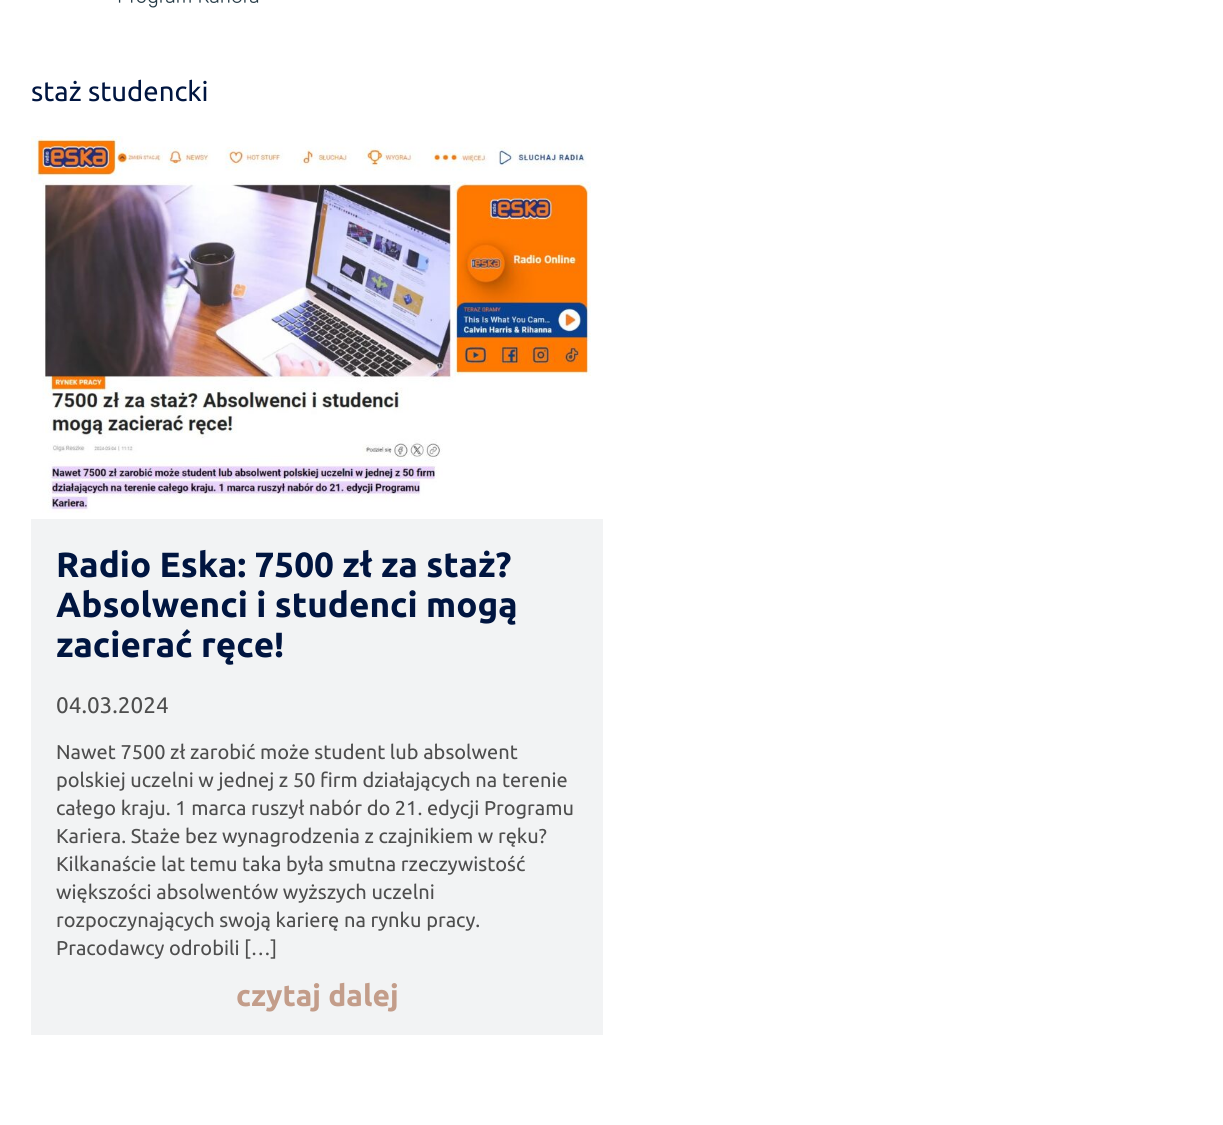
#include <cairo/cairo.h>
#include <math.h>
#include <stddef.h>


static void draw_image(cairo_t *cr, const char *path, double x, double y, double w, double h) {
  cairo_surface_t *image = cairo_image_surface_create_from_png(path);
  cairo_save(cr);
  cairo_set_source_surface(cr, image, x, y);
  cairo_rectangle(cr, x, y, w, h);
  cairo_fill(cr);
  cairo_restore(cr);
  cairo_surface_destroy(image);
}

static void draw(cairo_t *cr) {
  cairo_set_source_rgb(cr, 1, 1, 1);
  cairo_paint(cr);
  draw_image(cr, "images/1.png", 118, 0, 141, 8);
  draw_image(cr, "images/2.png", 31, 136, 560, 377);
  cairo_set_source_rgb(cr, 242 / 255.0, 243 / 255.0, 244 / 255.0);
  cairo_rectangle(cr, 31, 519, 572, 516);
  cairo_fill(cr);
  cairo_select_font_face(cr, "Ubuntu", CAIRO_FONT_SLANT_NORMAL, CAIRO_FONT_WEIGHT_NORMAL);
  cairo_set_font_size(cr, 27.5);
  cairo_set_source_rgb(cr, 0, 21 / 255.0, 64 / 255.0);
  cairo_move_to(cr, 31, 101);
  cairo_show_text(cr, "staż studencki");
  cairo_select_font_face(cr, "Ubuntu", CAIRO_FONT_SLANT_NORMAL, CAIRO_FONT_WEIGHT_BOLD);
  cairo_set_font_size(cr, 35);
  cairo_move_to(cr, 56, 577);
  cairo_show_text(cr, "Radio Eska: 7500 zł za staż?");
  cairo_move_to(cr, 56, 617);
  cairo_show_text(cr, "Absolwenci i studenci mogą");
  cairo_move_to(cr, 56, 657);
  cairo_show_text(cr, "zacierać ręce!");
  cairo_select_font_face(cr, "Ubuntu", CAIRO_FONT_SLANT_NORMAL, CAIRO_FONT_WEIGHT_NORMAL);
  cairo_set_font_size(cr, 22.5);
  cairo_set_source_rgb(cr, 78 / 255.0, 78 / 255.0, 78 / 255.0);
  cairo_move_to(cr, 56, 713);
  cairo_show_text(cr, "04.03.2024");
  cairo_set_font_size(cr, 20);
  cairo_move_to(cr, 56, 759);
  cairo_show_text(cr, "Nawet 7500 zł zarobić może student lub absolwent");
  cairo_move_to(cr, 56, 787);
  cairo_show_text(cr, "polskiej uczelni w jednej z 50 firm działających na terenie");
  cairo_move_to(cr, 56, 815);
  cairo_show_text(cr, "całego kraju. 1 marca ruszył nabór do 21. edycji Programu");
  cairo_move_to(cr, 56, 843);
  cairo_show_text(cr, "Kariera. Staże bez wynagrodzenia z czajnikiem w ręku?");
  cairo_move_to(cr, 56, 871);
  cairo_show_text(cr, "Kilkanaście lat temu taka była smutna rzeczywistość");
  cairo_move_to(cr, 56, 899);
  cairo_show_text(cr, "większości absolwentów wyższych uczelni");
  cairo_move_to(cr, 56, 927);
  cairo_show_text(cr, "rozpoczynających swoją karierę na rynku pracy.");
  cairo_move_to(cr, 56, 955);
  cairo_show_text(cr, "Pracodawcy odrobili […]");
  cairo_select_font_face(cr, "Ubuntu", CAIRO_FONT_SLANT_NORMAL, CAIRO_FONT_WEIGHT_BOLD);
  cairo_set_font_size(cr, 30);
  cairo_set_source_rgb(cr, 195 / 255.0, 157 / 255.0, 138 / 255.0);
  cairo_move_to(cr, 236, 1006);
  cairo_show_text(cr, "czytaj dalej");
}

int main(void) {
  cairo_surface_t *surface = cairo_image_surface_create(CAIRO_FORMAT_RGB24, 1223, 1125);
  cairo_t *cr = cairo_create(surface);
  cairo_font_options_t *options = cairo_font_options_create();
  cairo_font_options_set_hint_metrics(options, CAIRO_HINT_METRICS_OFF);
  cairo_font_options_set_hint_style(options, CAIRO_HINT_STYLE_NONE);
  cairo_set_font_options(cr, options);
  cairo_set_miter_limit(cr, 4);
  draw(cr);
  cairo_surface_write_to_png(surface, "out.png");
  cairo_font_options_destroy(options);
  cairo_destroy(cr);
  cairo_surface_destroy(surface);
  return 0;
}
